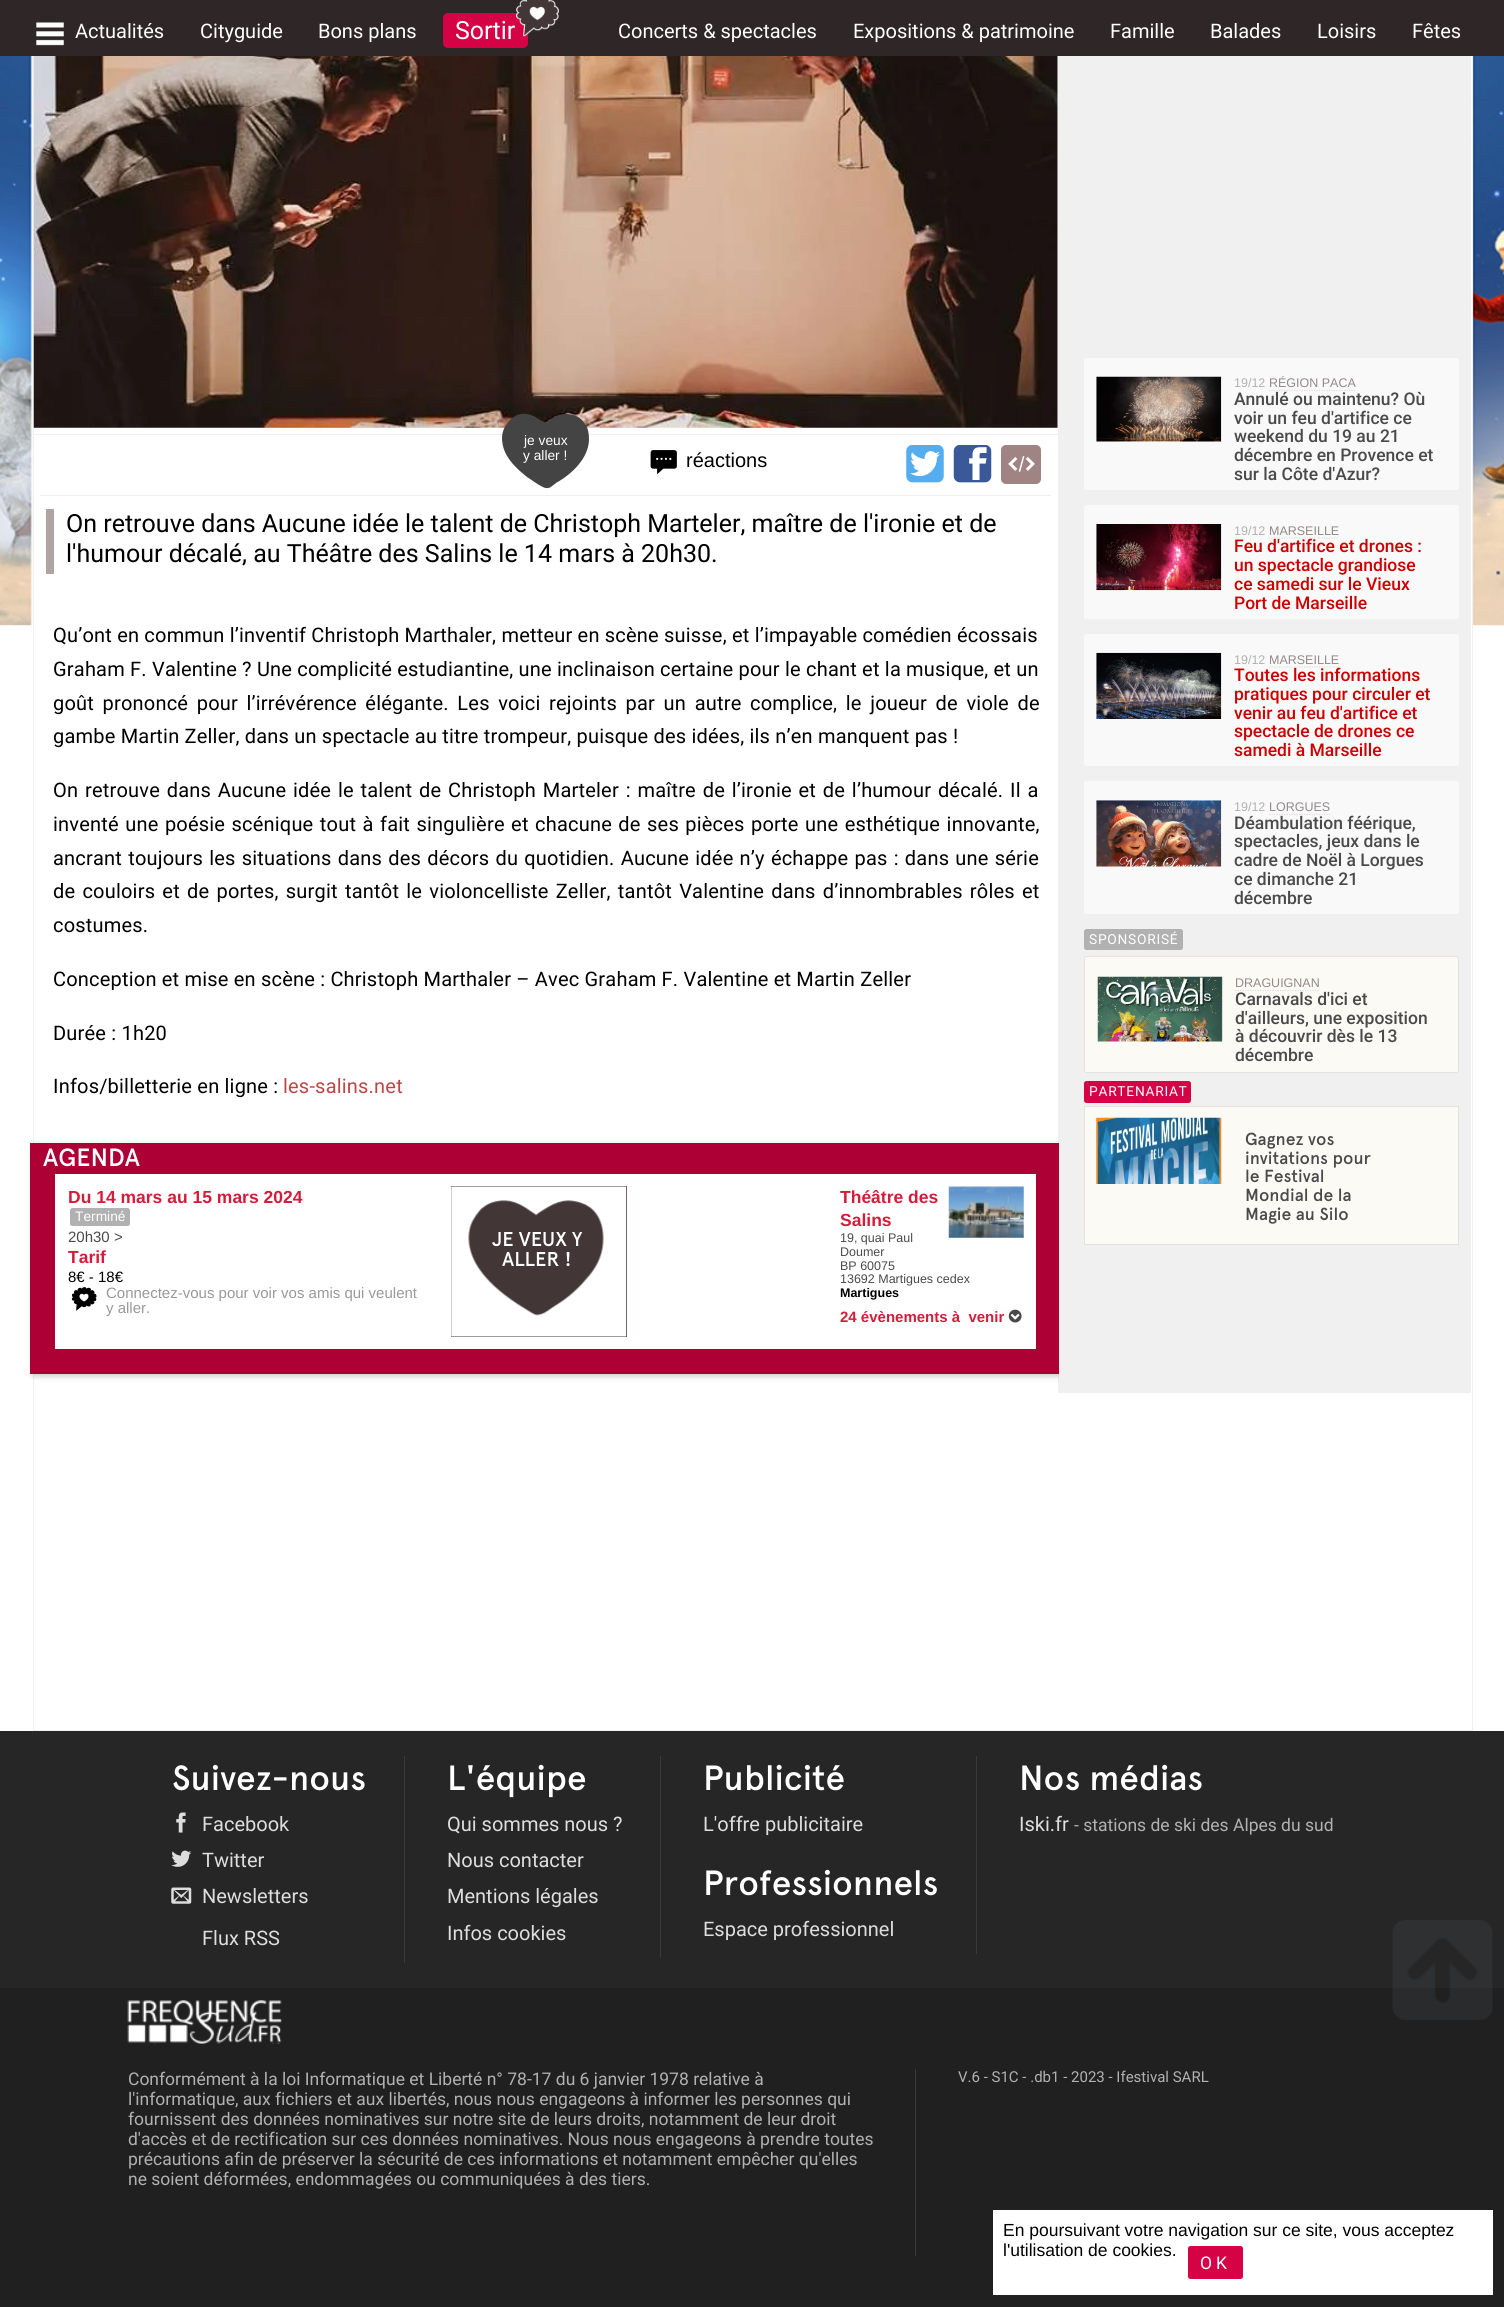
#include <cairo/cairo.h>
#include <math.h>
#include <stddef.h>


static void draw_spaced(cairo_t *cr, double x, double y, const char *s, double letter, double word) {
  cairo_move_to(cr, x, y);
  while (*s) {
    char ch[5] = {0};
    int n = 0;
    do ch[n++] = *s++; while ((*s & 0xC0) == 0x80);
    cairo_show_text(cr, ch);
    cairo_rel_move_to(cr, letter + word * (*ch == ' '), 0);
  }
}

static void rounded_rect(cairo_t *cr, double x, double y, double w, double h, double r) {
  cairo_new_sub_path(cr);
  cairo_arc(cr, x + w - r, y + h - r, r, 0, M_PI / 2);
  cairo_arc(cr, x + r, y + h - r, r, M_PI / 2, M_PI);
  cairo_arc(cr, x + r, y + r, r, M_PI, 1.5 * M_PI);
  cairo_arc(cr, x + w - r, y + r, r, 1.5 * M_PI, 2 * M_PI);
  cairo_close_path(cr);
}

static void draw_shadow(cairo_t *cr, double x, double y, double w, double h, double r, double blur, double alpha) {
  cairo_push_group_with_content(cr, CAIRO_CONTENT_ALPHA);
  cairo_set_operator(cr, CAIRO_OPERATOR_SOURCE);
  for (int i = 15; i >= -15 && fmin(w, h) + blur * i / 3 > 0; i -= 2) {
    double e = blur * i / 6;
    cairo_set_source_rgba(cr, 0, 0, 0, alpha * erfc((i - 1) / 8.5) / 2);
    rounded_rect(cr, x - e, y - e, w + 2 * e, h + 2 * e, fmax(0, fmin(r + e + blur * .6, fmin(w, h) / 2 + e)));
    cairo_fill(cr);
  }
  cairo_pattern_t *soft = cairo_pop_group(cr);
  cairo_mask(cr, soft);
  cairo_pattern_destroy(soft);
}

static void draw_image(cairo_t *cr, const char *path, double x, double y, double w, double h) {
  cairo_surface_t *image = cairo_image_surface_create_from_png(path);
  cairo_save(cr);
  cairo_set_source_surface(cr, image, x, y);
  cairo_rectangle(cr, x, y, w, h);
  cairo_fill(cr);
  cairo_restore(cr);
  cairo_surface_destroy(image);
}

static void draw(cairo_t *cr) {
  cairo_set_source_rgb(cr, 1, 1, 1);
  cairo_paint(cr);
  draw_image(cr, "images/3.png", 0, 56, 1504, 570);
  cairo_set_source_rgb(cr, 1, 1, 1);
  cairo_rectangle(cr, 1463, 56, 9, 569);
  cairo_fill(cr);
  cairo_rectangle(cr, 33.5, -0.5, 1439, 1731);
  cairo_set_source_rgb(cr, 240 / 255.0, 240 / 255.0, 240 / 255.0);
  cairo_set_line_width(cr, 1);
  cairo_stroke(cr);
  cairo_set_source_rgb(cr, 47 / 255.0, 39 / 255.0, 39 / 255.0);
  cairo_rectangle(cr, 0, 0, 1504, 56);
  cairo_fill(cr);
  draw_image(cr, "images/1.png", 36, 22, 28, 24);
  cairo_set_source_rgb(cr, 213 / 255.0, 2 / 255.0, 69 / 255.0);
  rounded_rect(cr, 443, 13, 85, 35, 5);
  cairo_fill(cr);
  draw_image(cr, "images/2.png", 516, 0, 43, 37);
  cairo_set_source_rgb(cr, 240 / 255.0, 240 / 255.0, 240 / 255.0);
  cairo_rectangle(cr, 1058, 56, 1, 1337);
  cairo_fill(cr);
  cairo_rectangle(cr, 34, 434, 1024, 1);
  cairo_fill(cr);
  draw_image(cr, "images/4.png", 33, 56, 1025, 372);
  cairo_rectangle(cr, 40, 495, 1011, 1);
  cairo_fill(cr);
  cairo_set_source_rgb(cr, 68 / 255.0, 68 / 255.0, 68 / 255.0);
  cairo_new_path(cr);
  cairo_move_to(cr, 566, 414);
  cairo_curve_to(cr, 559, 414, 552, 418, 546, 423);
  cairo_line_to(cr, 540, 420);
  cairo_curve_to(cr, 528, 411, 515, 411, 506, 425);
  cairo_curve_to(cr, 502, 431, 501, 438, 503, 446);
  cairo_curve_to(cr, 506, 459, 517, 469, 527, 477);
  cairo_curve_to(cr, 529, 478, 542, 488, 546, 488);
  cairo_curve_to(cr, 550, 489, 553, 485, 556, 483);
  cairo_curve_to(cr, 572, 474, 589, 458, 589, 439);
  cairo_curve_to(cr, 589, 433, 588, 428, 585, 424);
  cairo_curve_to(cr, 581, 417, 574, 414, 566, 414);
  cairo_close_path(cr);
  cairo_fill(cr);
  draw_image(cr, "images/5.png", 650, 450, 27, 25);
  draw_image(cr, "images/6.png", 906, 445, 38, 38);
  draw_image(cr, "images/7.png", 953, 445, 39, 38);
  cairo_set_source_rgb(cr, 160 / 255.0, 131 / 255.0, 131 / 255.0);
  rounded_rect(cr, 1001, 445, 40, 39, 5);
  cairo_fill(cr);
  draw_image(cr, "images/8.png", 1008, 456, 27, 16);
  cairo_set_source_rgb(cr, 175 / 255.0, 164 / 255.0, 164 / 255.0);
  cairo_rectangle(cr, 46, 509, 8, 65);
  cairo_fill(cr);
  cairo_set_source_rgb(cr, 150 / 255.0, 150 / 255.0, 150 / 255.0);
  draw_shadow(cr, 33, 1145, 1031, 231, 0, 3, 0.52);
  cairo_set_source_rgb(cr, 173 / 255.0, 0, 53 / 255.0);
  cairo_rectangle(cr, 30, 1143, 1029, 231);
  cairo_fill(cr);
  cairo_set_source_rgb(cr, 1, 1, 1);
  cairo_rectangle(cr, 55, 1174, 981, 175);
  cairo_fill(cr);
  cairo_set_source_rgb(cr, 177 / 255.0, 177 / 255.0, 177 / 255.0);
  rounded_rect(cr, 70, 1208, 60, 18, 2.5);
  cairo_fill(cr);
  draw_image(cr, "images/9.png", 71, 1287, 26, 24);
  cairo_set_source_rgb(cr, 66 / 255.0, 54 / 255.0, 54 / 255.0);
  cairo_rectangle(cr, 451, 1186, 176, 151);
  cairo_fill(cr);
  draw_image(cr, "images/11.png", 948, 1186, 76, 52);
  draw_image(cr, "images/12.png", 1008, 1309, 14, 14);
  cairo_set_source_rgb(cr, 240 / 255.0, 240 / 255.0, 240 / 255.0);
  cairo_rectangle(cr, 1059, 56, 412, 1337);
  cairo_fill(cr);
  cairo_set_source_rgb(cr, 249 / 255.0, 249 / 255.0, 249 / 255.0);
  rounded_rect(cr, 1084, 358, 375, 132, 2.5);
  cairo_fill(cr);
  draw_image(cr, "images/13.png", 1096, 376, 126, 66);
  cairo_new_path(cr);
  cairo_move_to(cr, 1269, 390.5);
  cairo_line_to(cr, 1355, 390.5);
  cairo_set_source_rgb(cr, 221 / 255.0, 221 / 255.0, 221 / 255.0);
  cairo_set_line_width(cr, 1.2);
  cairo_set_dash(cr, (double[]){1.25, 1.25}, 2, 0);
  cairo_stroke(cr);
  cairo_set_source_rgb(cr, 249 / 255.0, 249 / 255.0, 249 / 255.0);
  rounded_rect(cr, 1084, 505, 375, 114, 2.5);
  cairo_fill(cr);
  draw_image(cr, "images/14.png", 1096, 524, 126, 67);
  cairo_new_path(cr);
  cairo_move_to(cr, 1269, 538);
  cairo_line_to(cr, 1339, 538);
  cairo_set_source_rgb(cr, 221 / 255.0, 221 / 255.0, 221 / 255.0);
  cairo_stroke(cr);
  cairo_set_source_rgb(cr, 249 / 255.0, 249 / 255.0, 249 / 255.0);
  rounded_rect(cr, 1084, 634, 375, 132, 2.5);
  cairo_fill(cr);
  draw_image(cr, "images/15.png", 1096, 652, 126, 67);
  cairo_new_path(cr);
  cairo_move_to(cr, 1269, 667);
  cairo_line_to(cr, 1339, 667);
  cairo_set_source_rgb(cr, 221 / 255.0, 221 / 255.0, 221 / 255.0);
  cairo_stroke(cr);
  cairo_set_source_rgb(cr, 249 / 255.0, 249 / 255.0, 249 / 255.0);
  rounded_rect(cr, 1084, 781, 375, 133, 2.5);
  cairo_fill(cr);
  draw_image(cr, "images/16.png", 1096, 800, 126, 67);
  cairo_new_path(cr);
  cairo_move_to(cr, 1269, 814.5);
  cairo_line_to(cr, 1330, 814.5);
  cairo_set_source_rgb(cr, 221 / 255.0, 221 / 255.0, 221 / 255.0);
  cairo_stroke(cr);
  cairo_set_source_rgb(cr, 177 / 255.0, 177 / 255.0, 177 / 255.0);
  rounded_rect(cr, 1084, 929, 99, 21, 2.5);
  cairo_fill(cr);
  cairo_set_source_rgb(cr, 251 / 255.0, 250 / 255.0, 245 / 255.0);
  rounded_rect(cr, 1084.5, 956.5, 374, 116, 2);
  cairo_fill_preserve(cr);
  cairo_set_source_rgb(cr, 226 / 255.0, 226 / 255.0, 226 / 255.0);
  cairo_set_line_width(cr, 1);
  cairo_set_dash(cr, NULL, 0, 0);
  cairo_stroke(cr);
  draw_image(cr, "images/17.png", 1097, 976, 126, 66);
  cairo_new_path(cr);
  cairo_move_to(cr, 1235, 990.5);
  cairo_line_to(cr, 1320, 990.5);
  cairo_set_source_rgb(cr, 221 / 255.0, 221 / 255.0, 221 / 255.0);
  cairo_set_line_width(cr, 1.2);
  cairo_set_dash(cr, (double[]){1.25, 1.25}, 2, 0);
  cairo_stroke(cr);
  cairo_set_source_rgb(cr, 213 / 255.0, 2 / 255.0, 69 / 255.0);
  rounded_rect(cr, 1084, 1081, 107, 22, 2.5);
  cairo_fill(cr);
  cairo_set_source_rgb(cr, 251 / 255.0, 250 / 255.0, 245 / 255.0);
  cairo_rectangle(cr, 1084.5, 1106.5, 374, 138);
  cairo_fill_preserve(cr);
  cairo_set_source_rgb(cr, 226 / 255.0, 226 / 255.0, 226 / 255.0);
  cairo_set_line_width(cr, 1);
  cairo_set_dash(cr, NULL, 0, 0);
  cairo_stroke(cr);
  draw_image(cr, "images/18.png", 1096, 1117, 126, 67);
  cairo_set_source_rgb(cr, 32 / 255.0, 32 / 255.0, 32 / 255.0);
  cairo_rectangle(cr, 0, 1988, 1504, 319);
  cairo_fill(cr);
  cairo_set_source_rgb(cr, 38 / 255.0, 38 / 255.0, 38 / 255.0);
  cairo_rectangle(cr, 0, 1731, 1504, 257);
  cairo_fill(cr);
  cairo_set_source_rgb(cr, 59 / 255.0, 58 / 255.0, 58 / 255.0);
  cairo_rectangle(cr, 404, 1756, 1, 207);
  cairo_fill(cr);
  draw_image(cr, "images/19.png", 176, 1812, 10, 21);
  draw_image(cr, "images/20.png", 171, 1850, 21, 17);
  draw_image(cr, "images/21.png", 171, 1887, 21, 17);
  cairo_rectangle(cr, 660, 1756, 1, 202);
  cairo_fill(cr);
  cairo_rectangle(cr, 976, 1756, 1, 198);
  cairo_fill(cr);
  draw_image(cr, "images/22.png", 127, 2000, 155, 44);
  cairo_rectangle(cr, 915, 2069, 1, 187);
  cairo_fill(cr);
  draw_image(cr, "images/23.png", 1392, 1920, 101, 100);
  cairo_set_source_rgb(cr, 1, 1, 1);
  cairo_rectangle(cr, 993, 2210, 500, 85);
  cairo_fill(cr);
  cairo_set_source_rgb(cr, 213 / 255.0, 2 / 255.0, 69 / 255.0);
  rounded_rect(cr, 1188, 2246, 55, 33, 2.5);
  cairo_fill(cr);
  cairo_select_font_face(cr, "Roboto", CAIRO_FONT_SLANT_NORMAL, CAIRO_FONT_WEIGHT_NORMAL);
  cairo_set_font_size(cr, 20);
  cairo_set_source_rgb(cr, 1, 1, 1);
  cairo_move_to(cr, 75, 38);
  cairo_show_text(cr, "Actualités");
  cairo_move_to(cr, 200, 38);
  cairo_show_text(cr, "Cityguide");
  cairo_move_to(cr, 318, 38);
  cairo_show_text(cr, "Bons plans");
  cairo_set_font_size(cr, 25);
  cairo_move_to(cr, 455, 39);
  cairo_show_text(cr, "Sortir");
  cairo_set_font_size(cr, 20);
  cairo_move_to(cr, 618, 38);
  cairo_show_text(cr, "Concerts & spectacles");
  cairo_move_to(cr, 853, 38);
  cairo_show_text(cr, "Expositions & patrimoine");
  cairo_move_to(cr, 1110, 38);
  cairo_show_text(cr, "Famille");
  cairo_move_to(cr, 1210, 38);
  cairo_show_text(cr, "Balades");
  cairo_move_to(cr, 1317, 38);
  cairo_show_text(cr, "Loisirs");
  cairo_move_to(cr, 1412, 38);
  cairo_show_text(cr, "Fêtes");
  cairo_select_font_face(cr, "Liberation Sans", CAIRO_FONT_SLANT_NORMAL, CAIRO_FONT_WEIGHT_NORMAL);
  cairo_set_font_size(cr, 13.75);
  cairo_move_to(cr, 524, 445);
  cairo_show_text(cr, "je veux");
  cairo_move_to(cr, 523, 460);
  cairo_show_text(cr, "y aller !");
  cairo_set_font_size(cr, 20);
  cairo_set_source_rgb(cr, 0, 0, 0);
  cairo_move_to(cr, 686, 467);
  cairo_show_text(cr, "réactions");
  cairo_select_font_face(cr, "Roboto", CAIRO_FONT_SLANT_NORMAL, CAIRO_FONT_WEIGHT_NORMAL);
  cairo_set_font_size(cr, 25);
  cairo_move_to(cr, 66, 532);
  cairo_show_text(cr, "On retrouve dans Aucune idée le talent de Christoph Marteler, maître de l'ironie et de");
  cairo_move_to(cr, 66, 562);
  cairo_show_text(cr, "l'humour décalé, au Théâtre des Salins le 14 mars à 20h30.");
  cairo_set_font_size(cr, 20);
  draw_spaced(cr, 53, 642, "Qu’ont en commun l’inventif Christoph Marthaler, metteur en scène suisse, et l’impayable comédien écossais", 0.2, 0);
  draw_spaced(cr, 53, 676, "Graham F. Valentine ? Une complicité estudiantine, une inclinaison certaine pour le chant et la musique, et un", 0.2, 0);
  draw_spaced(cr, 53, 710, "goût prononcé pour l’irrévérence élégante. Les voici rejoints par un autre complice, le joueur de viole de", 0.2, 3.4);
  draw_spaced(cr, 53, 743, "gambe Martin Zeller, dans un spectacle au titre trompeur, puisque des idées, ils n’en manquent pas !", 0.2, 0);
  draw_spaced(cr, 53, 797, "On retrouve dans Aucune idée le talent de Christoph Marteler : maître de l’ironie et de l’humour décalé. Il a", 0.2, 1.6);
  draw_spaced(cr, 53, 831, "inventé une poésie scénique tout à fait singulière et chacune de ses pièces porte une esthétique innovante,", 0.2, 1.25);
  draw_spaced(cr, 53, 865, "ancrant toujours les situations dans des décors du quotidien. Aucune idée n’y échappe pas : dans une série", 0.2, 1);
  draw_spaced(cr, 53, 898, "de couloirs et de portes, surgit tantôt le violoncelliste Zeller, tantôt Valentine dans d’innombrables rôles et", 0.2, 2);
  draw_spaced(cr, 53, 932, "costumes.", 0.2, 0);
  draw_spaced(cr, 53, 986, "Conception et mise en scène : Christoph Marthaler – Avec Graham F. Valentine et Martin Zeller", 0.2, 0);
  draw_spaced(cr, 53, 1040, "Durée : 1h20", 0.2, 0);
  draw_spaced(cr, 53, 1093, "Infos/billetterie en ligne :", 0.2, 0);
  cairo_set_source_rgb(cr, 190 / 255.0, 70 / 255.0, 70 / 255.0);
  draw_spaced(cr, 283, 1093, "les-salins.net", 0.2, 0);
  cairo_select_font_face(cr, "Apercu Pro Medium", CAIRO_FONT_SLANT_NORMAL, CAIRO_FONT_WEIGHT_NORMAL);
  cairo_set_font_size(cr, 25);
  cairo_set_source_rgb(cr, 1, 1, 1);
  cairo_move_to(cr, 43, 1166);
  cairo_show_text(cr, "AGENDA");
  cairo_select_font_face(cr, "Liberation Sans", CAIRO_FONT_SLANT_NORMAL, CAIRO_FONT_WEIGHT_BOLD);
  cairo_set_font_size(cr, 17.5);
  cairo_set_source_rgb(cr, 212 / 255.0, 28 / 255.0, 59 / 255.0);
  cairo_move_to(cr, 68, 1203);
  cairo_show_text(cr, "Du 14 mars au 15 mars 2024");
  cairo_select_font_face(cr, "Liberation Sans", CAIRO_FONT_SLANT_NORMAL, CAIRO_FONT_WEIGHT_NORMAL);
  cairo_set_font_size(cr, 13.75);
  cairo_set_source_rgb(cr, 1, 1, 1);
  cairo_move_to(cr, 75, 1221);
  cairo_show_text(cr, "Terminé");
  cairo_set_font_size(cr, 15);
  cairo_set_source_rgb(cr, 74 / 255.0, 74 / 255.0, 74 / 255.0);
  cairo_move_to(cr, 68, 1242);
  cairo_show_text(cr, "20h30 >");
  cairo_select_font_face(cr, "Liberation Sans", CAIRO_FONT_SLANT_NORMAL, CAIRO_FONT_WEIGHT_BOLD);
  cairo_set_font_size(cr, 17.5);
  cairo_set_source_rgb(cr, 212 / 255.0, 28 / 255.0, 59 / 255.0);
  cairo_move_to(cr, 68, 1263);
  cairo_show_text(cr, "Tarif");
  cairo_select_font_face(cr, "Liberation Sans", CAIRO_FONT_SLANT_NORMAL, CAIRO_FONT_WEIGHT_NORMAL);
  cairo_set_font_size(cr, 15);
  cairo_set_source_rgb(cr, 0, 0, 0);
  cairo_move_to(cr, 68, 1282);
  cairo_show_text(cr, "8€ - 18€");
  cairo_set_source_rgb(cr, 153 / 255.0, 153 / 255.0, 153 / 255.0);
  cairo_move_to(cr, 106, 1298);
  cairo_show_text(cr, "Connectez-vous pour voir vos amis qui veulent");
  cairo_move_to(cr, 106, 1313);
  cairo_show_text(cr, "y aller.");
  cairo_select_font_face(cr, "Apercu Pro Medium", CAIRO_FONT_SLANT_NORMAL, CAIRO_FONT_WEIGHT_NORMAL);
  cairo_set_font_size(cr, 20);
  cairo_set_source_rgb(cr, 1, 1, 1);
  cairo_move_to(cr, 492, 1246);
  cairo_show_text(cr, "JE VEUX Y");
  cairo_move_to(cr, 502, 1266);
  cairo_show_text(cr, "ALLER !");
  draw_image(cr, "images/10.png", 451, 1186, 176, 151);
  cairo_select_font_face(cr, "Liberation Sans", CAIRO_FONT_SLANT_NORMAL, CAIRO_FONT_WEIGHT_BOLD);
  cairo_set_font_size(cr, 17.5);
  cairo_set_source_rgb(cr, 212 / 255.0, 28 / 255.0, 59 / 255.0);
  cairo_move_to(cr, 840, 1203);
  cairo_show_text(cr, "Théâtre des");
  cairo_move_to(cr, 840, 1226);
  cairo_show_text(cr, "Salins");
  cairo_select_font_face(cr, "Liberation Sans", CAIRO_FONT_SLANT_NORMAL, CAIRO_FONT_WEIGHT_NORMAL);
  cairo_set_font_size(cr, 12.5);
  cairo_set_source_rgb(cr, 74 / 255.0, 74 / 255.0, 74 / 255.0);
  cairo_move_to(cr, 840, 1242);
  cairo_show_text(cr, "19, quai Paul");
  cairo_move_to(cr, 840, 1256);
  cairo_show_text(cr, "Doumer");
  cairo_move_to(cr, 840, 1270);
  cairo_show_text(cr, "BP 60075");
  cairo_move_to(cr, 840, 1283);
  cairo_show_text(cr, "13692 Martigues cedex");
  cairo_select_font_face(cr, "Liberation Sans", CAIRO_FONT_SLANT_NORMAL, CAIRO_FONT_WEIGHT_BOLD);
  cairo_set_source_rgb(cr, 0, 0, 0);
  cairo_move_to(cr, 840, 1297);
  cairo_show_text(cr, "Martigues");
  cairo_set_font_size(cr, 15);
  cairo_set_source_rgb(cr, 212 / 255.0, 28 / 255.0, 59 / 255.0);
  cairo_move_to(cr, 840, 1322);
  cairo_show_text(cr, "24 évènements à  venir");
  cairo_select_font_face(cr, "Liberation Sans", CAIRO_FONT_SLANT_NORMAL, CAIRO_FONT_WEIGHT_NORMAL);
  cairo_set_font_size(cr, 12.5);
  cairo_set_source_rgb(cr, 177 / 255.0, 177 / 255.0, 177 / 255.0);
  cairo_move_to(cr, 1234, 387);
  cairo_show_text(cr, "19/12");
  cairo_set_source_rgb(cr, 146 / 255.0, 137 / 255.0, 137 / 255.0);
  cairo_move_to(cr, 1269, 387);
  cairo_show_text(cr, "RÉGION PACA");
  cairo_select_font_face(cr, "Roboto Medium", CAIRO_FONT_SLANT_NORMAL, CAIRO_FONT_WEIGHT_NORMAL);
  cairo_set_font_size(cr, 17.5);
  cairo_set_source_rgb(cr, 74 / 255.0, 74 / 255.0, 74 / 255.0);
  cairo_move_to(cr, 1234, 405);
  cairo_show_text(cr, "Annulé ou maintenu? Où");
  cairo_move_to(cr, 1234, 424);
  cairo_show_text(cr, "voir un feu d'artifice ce");
  cairo_move_to(cr, 1234, 442);
  cairo_show_text(cr, "weekend du 19 au 21");
  cairo_move_to(cr, 1234, 461);
  cairo_show_text(cr, "décembre en Provence et");
  cairo_move_to(cr, 1234, 480);
  cairo_show_text(cr, "sur la Côte d'Azur?");
  cairo_select_font_face(cr, "Liberation Sans", CAIRO_FONT_SLANT_NORMAL, CAIRO_FONT_WEIGHT_NORMAL);
  cairo_set_font_size(cr, 12.5);
  cairo_set_source_rgb(cr, 177 / 255.0, 177 / 255.0, 177 / 255.0);
  cairo_move_to(cr, 1234, 535);
  cairo_show_text(cr, "19/12");
  cairo_set_source_rgb(cr, 146 / 255.0, 137 / 255.0, 137 / 255.0);
  cairo_move_to(cr, 1269, 535);
  cairo_show_text(cr, "MARSEILLE");
  cairo_select_font_face(cr, "Roboto Medium", CAIRO_FONT_SLANT_NORMAL, CAIRO_FONT_WEIGHT_NORMAL);
  cairo_set_font_size(cr, 17.5);
  cairo_set_source_rgb(cr, 204 / 255.0, 0, 0);
  cairo_move_to(cr, 1234, 552);
  cairo_show_text(cr, "Feu d'artifice et drones :");
  cairo_move_to(cr, 1234, 571);
  cairo_show_text(cr, "un spectacle grandiose");
  cairo_move_to(cr, 1234, 590);
  cairo_show_text(cr, "ce samedi sur le Vieux");
  cairo_move_to(cr, 1234, 609);
  cairo_show_text(cr, "Port de Marseille");
  cairo_select_font_face(cr, "Liberation Sans", CAIRO_FONT_SLANT_NORMAL, CAIRO_FONT_WEIGHT_NORMAL);
  cairo_set_font_size(cr, 12.5);
  cairo_set_source_rgb(cr, 177 / 255.0, 177 / 255.0, 177 / 255.0);
  cairo_move_to(cr, 1234, 664);
  cairo_show_text(cr, "19/12");
  cairo_set_source_rgb(cr, 146 / 255.0, 137 / 255.0, 137 / 255.0);
  cairo_move_to(cr, 1269, 664);
  cairo_show_text(cr, "MARSEILLE");
  cairo_select_font_face(cr, "Roboto Medium", CAIRO_FONT_SLANT_NORMAL, CAIRO_FONT_WEIGHT_NORMAL);
  cairo_set_font_size(cr, 17.5);
  cairo_set_source_rgb(cr, 204 / 255.0, 0, 0);
  cairo_move_to(cr, 1234, 681);
  cairo_show_text(cr, "Toutes les informations");
  cairo_move_to(cr, 1234, 700);
  cairo_show_text(cr, "pratiques pour circuler et");
  cairo_move_to(cr, 1234, 719);
  cairo_show_text(cr, "venir au feu d'artifice et");
  cairo_move_to(cr, 1234, 737);
  cairo_show_text(cr, "spectacle de drones ce");
  cairo_move_to(cr, 1234, 756);
  cairo_show_text(cr, "samedi à Marseille");
  cairo_select_font_face(cr, "Liberation Sans", CAIRO_FONT_SLANT_NORMAL, CAIRO_FONT_WEIGHT_NORMAL);
  cairo_set_font_size(cr, 12.5);
  cairo_set_source_rgb(cr, 177 / 255.0, 177 / 255.0, 177 / 255.0);
  cairo_move_to(cr, 1234, 811);
  cairo_show_text(cr, "19/12");
  cairo_set_source_rgb(cr, 146 / 255.0, 137 / 255.0, 137 / 255.0);
  cairo_move_to(cr, 1269, 811);
  cairo_show_text(cr, "LORGUES");
  cairo_select_font_face(cr, "Roboto Medium", CAIRO_FONT_SLANT_NORMAL, CAIRO_FONT_WEIGHT_NORMAL);
  cairo_set_font_size(cr, 17.5);
  cairo_set_source_rgb(cr, 74 / 255.0, 74 / 255.0, 74 / 255.0);
  cairo_move_to(cr, 1234, 829);
  cairo_show_text(cr, "Déambulation féérique,");
  cairo_move_to(cr, 1234, 847);
  cairo_show_text(cr, "spectacles, jeux dans le");
  cairo_move_to(cr, 1234, 866);
  cairo_show_text(cr, "cadre de Noël à Lorgues");
  cairo_move_to(cr, 1234, 885);
  cairo_show_text(cr, "ce dimanche 21");
  cairo_move_to(cr, 1234, 904);
  cairo_show_text(cr, "décembre");
  cairo_select_font_face(cr, "Roboto", CAIRO_FONT_SLANT_NORMAL, CAIRO_FONT_WEIGHT_NORMAL);
  cairo_set_font_size(cr, 13.75);
  cairo_set_source_rgb(cr, 1, 1, 1);
  draw_spaced(cr, 1089, 944, "SPONSORISÉ", 0.75, 0);
  cairo_select_font_face(cr, "Liberation Sans", CAIRO_FONT_SLANT_NORMAL, CAIRO_FONT_WEIGHT_NORMAL);
  cairo_set_font_size(cr, 12.5);
  cairo_set_source_rgb(cr, 146 / 255.0, 137 / 255.0, 137 / 255.0);
  cairo_move_to(cr, 1235, 987);
  cairo_show_text(cr, "DRAGUIGNAN");
  cairo_select_font_face(cr, "Roboto Medium", CAIRO_FONT_SLANT_NORMAL, CAIRO_FONT_WEIGHT_NORMAL);
  cairo_set_font_size(cr, 17.5);
  cairo_set_source_rgb(cr, 74 / 255.0, 74 / 255.0, 74 / 255.0);
  cairo_move_to(cr, 1235, 1005);
  cairo_show_text(cr, "Carnavals d'ici et");
  cairo_move_to(cr, 1235, 1024);
  cairo_show_text(cr, "d'ailleurs, une exposition");
  cairo_move_to(cr, 1235, 1042);
  cairo_show_text(cr, "à découvrir dès le 13");
  cairo_move_to(cr, 1235, 1061);
  cairo_show_text(cr, "décembre");
  cairo_select_font_face(cr, "Roboto", CAIRO_FONT_SLANT_NORMAL, CAIRO_FONT_WEIGHT_NORMAL);
  cairo_set_font_size(cr, 13.75);
  cairo_set_source_rgb(cr, 1, 1, 1);
  draw_spaced(cr, 1089, 1096, "PARTENARIAT", 0.75, 0);
  cairo_select_font_face(cr, "Apercu Pro Medium", CAIRO_FONT_SLANT_NORMAL, CAIRO_FONT_WEIGHT_NORMAL);
  cairo_set_font_size(cr, 17.5);
  cairo_set_source_rgb(cr, 74 / 255.0, 74 / 255.0, 74 / 255.0);
  cairo_move_to(cr, 1245, 1145);
  cairo_show_text(cr, "Gagnez vos");
  cairo_move_to(cr, 1245, 1164);
  cairo_show_text(cr, "invitations pour");
  cairo_move_to(cr, 1245, 1182);
  cairo_show_text(cr, "le Festival");
  cairo_move_to(cr, 1245, 1201);
  cairo_show_text(cr, "Mondial de la");
  cairo_move_to(cr, 1245, 1220);
  cairo_show_text(cr, "Magie au Silo");
  cairo_set_font_size(cr, 35);
  cairo_set_source_rgb(cr, 1, 1, 1);
  cairo_move_to(cr, 172, 1790);
  cairo_show_text(cr, "Suivez-nous");
  cairo_select_font_face(cr, "Roboto", CAIRO_FONT_SLANT_NORMAL, CAIRO_FONT_WEIGHT_NORMAL);
  cairo_set_font_size(cr, 20);
  cairo_set_source_rgb(cr, 221 / 255.0, 221 / 255.0, 221 / 255.0);
  cairo_move_to(cr, 202, 1831);
  cairo_show_text(cr, "Facebook");
  cairo_move_to(cr, 202, 1867);
  cairo_show_text(cr, "Twitter");
  cairo_move_to(cr, 202, 1903);
  cairo_show_text(cr, "Newsletters");
  cairo_move_to(cr, 202, 1945);
  cairo_show_text(cr, "Flux RSS");
  cairo_select_font_face(cr, "Apercu Pro Medium", CAIRO_FONT_SLANT_NORMAL, CAIRO_FONT_WEIGHT_NORMAL);
  cairo_set_font_size(cr, 35);
  cairo_set_source_rgb(cr, 1, 1, 1);
  cairo_move_to(cr, 447, 1790);
  cairo_show_text(cr, "L'équipe");
  cairo_select_font_face(cr, "Roboto", CAIRO_FONT_SLANT_NORMAL, CAIRO_FONT_WEIGHT_NORMAL);
  cairo_set_font_size(cr, 20);
  cairo_set_source_rgb(cr, 221 / 255.0, 221 / 255.0, 221 / 255.0);
  cairo_move_to(cr, 447, 1831);
  cairo_show_text(cr, "Qui sommes nous ?");
  cairo_move_to(cr, 447, 1867);
  cairo_show_text(cr, "Nous contacter");
  cairo_move_to(cr, 447, 1903);
  cairo_show_text(cr, "Mentions légales");
  cairo_move_to(cr, 447, 1940);
  cairo_show_text(cr, "Infos cookies");
  cairo_select_font_face(cr, "Apercu Pro Medium", CAIRO_FONT_SLANT_NORMAL, CAIRO_FONT_WEIGHT_NORMAL);
  cairo_set_font_size(cr, 35);
  cairo_set_source_rgb(cr, 1, 1, 1);
  cairo_move_to(cr, 703, 1790);
  cairo_show_text(cr, "Publicité");
  cairo_select_font_face(cr, "Roboto", CAIRO_FONT_SLANT_NORMAL, CAIRO_FONT_WEIGHT_NORMAL);
  cairo_set_font_size(cr, 20);
  cairo_set_source_rgb(cr, 221 / 255.0, 221 / 255.0, 221 / 255.0);
  cairo_move_to(cr, 703, 1831);
  cairo_show_text(cr, "L'offre publicitaire");
  cairo_select_font_face(cr, "Apercu Pro Medium", CAIRO_FONT_SLANT_NORMAL, CAIRO_FONT_WEIGHT_NORMAL);
  cairo_set_font_size(cr, 35);
  cairo_set_source_rgb(cr, 1, 1, 1);
  cairo_move_to(cr, 703, 1895);
  cairo_show_text(cr, "Professionnels");
  cairo_select_font_face(cr, "Roboto", CAIRO_FONT_SLANT_NORMAL, CAIRO_FONT_WEIGHT_NORMAL);
  cairo_set_font_size(cr, 20);
  cairo_set_source_rgb(cr, 221 / 255.0, 221 / 255.0, 221 / 255.0);
  cairo_move_to(cr, 703, 1936);
  cairo_show_text(cr, "Espace professionnel");
  cairo_select_font_face(cr, "Apercu Pro Medium", CAIRO_FONT_SLANT_NORMAL, CAIRO_FONT_WEIGHT_NORMAL);
  cairo_set_font_size(cr, 35);
  cairo_set_source_rgb(cr, 1, 1, 1);
  cairo_move_to(cr, 1019, 1790);
  cairo_show_text(cr, "Nos médias");
  cairo_select_font_face(cr, "Roboto", CAIRO_FONT_SLANT_NORMAL, CAIRO_FONT_WEIGHT_NORMAL);
  cairo_set_font_size(cr, 20);
  cairo_set_source_rgb(cr, 221 / 255.0, 221 / 255.0, 221 / 255.0);
  cairo_move_to(cr, 1019, 1831);
  cairo_show_text(cr, "Iski.fr");
  cairo_set_font_size(cr, 17.5);
  cairo_set_source_rgb(cr, 177 / 255.0, 177 / 255.0, 177 / 255.0);
  cairo_move_to(cr, 1074, 1831);
  cairo_show_text(cr, "- stations de ski des Alpes du sud");
  cairo_move_to(cr, 128, 2085);
  cairo_show_text(cr, "Conformément à la loi Informatique et Liberté n° 78-17 du 6 janvier 1978 relative à");
  cairo_move_to(cr, 128, 2105);
  cairo_show_text(cr, "l'informatique, aux fichiers et aux libertés, nous nous engageons à informer les personnes qui");
  cairo_move_to(cr, 128, 2125);
  cairo_show_text(cr, "fournissent des données nominatives sur notre site de leurs droits, notamment de leur droit");
  cairo_move_to(cr, 128, 2145);
  cairo_show_text(cr, "d'accès et de rectification sur ces données nominatives. Nous nous engageons à prendre toutes");
  cairo_move_to(cr, 128, 2165);
  cairo_show_text(cr, "précautions afin de préserver la sécurité de ces informations et notamment empêcher qu'elles");
  cairo_move_to(cr, 128, 2185);
  cairo_show_text(cr, "ne soient déformées, endommagées ou communiquées à des tiers.");
  cairo_set_font_size(cr, 15);
  cairo_move_to(cr, 958, 2082);
  cairo_show_text(cr, "V.6 - S1C - .db1 - 2023 - Ifestival SARL");
  cairo_select_font_face(cr, "Liberation Sans", CAIRO_FONT_SLANT_NORMAL, CAIRO_FONT_WEIGHT_NORMAL);
  cairo_set_font_size(cr, 17.5);
  cairo_set_source_rgb(cr, 0, 0, 0);
  cairo_move_to(cr, 1003, 2236);
  cairo_show_text(cr, "En poursuivant votre navigation sur ce site, vous acceptez");
  cairo_move_to(cr, 1003, 2256);
  cairo_show_text(cr, "l'utilisation de cookies.");
  cairo_select_font_face(cr, "Roboto", CAIRO_FONT_SLANT_NORMAL, CAIRO_FONT_WEIGHT_NORMAL);
  cairo_set_source_rgb(cr, 1, 1, 1);
  draw_spaced(cr, 1200, 2269, "OK", 4, 0);
}

int main(void) {
  cairo_surface_t *surface = cairo_image_surface_create(CAIRO_FORMAT_RGB24, 1504, 2307);
  cairo_t *cr = cairo_create(surface);
  cairo_font_options_t *options = cairo_font_options_create();
  cairo_font_options_set_hint_metrics(options, CAIRO_HINT_METRICS_OFF);
  cairo_font_options_set_hint_style(options, CAIRO_HINT_STYLE_NONE);
  cairo_set_font_options(cr, options);
  cairo_set_miter_limit(cr, 4);
  draw(cr);
  cairo_surface_write_to_png(surface, "out.png");
  cairo_font_options_destroy(options);
  cairo_destroy(cr);
  cairo_surface_destroy(surface);
  return 0;
}
